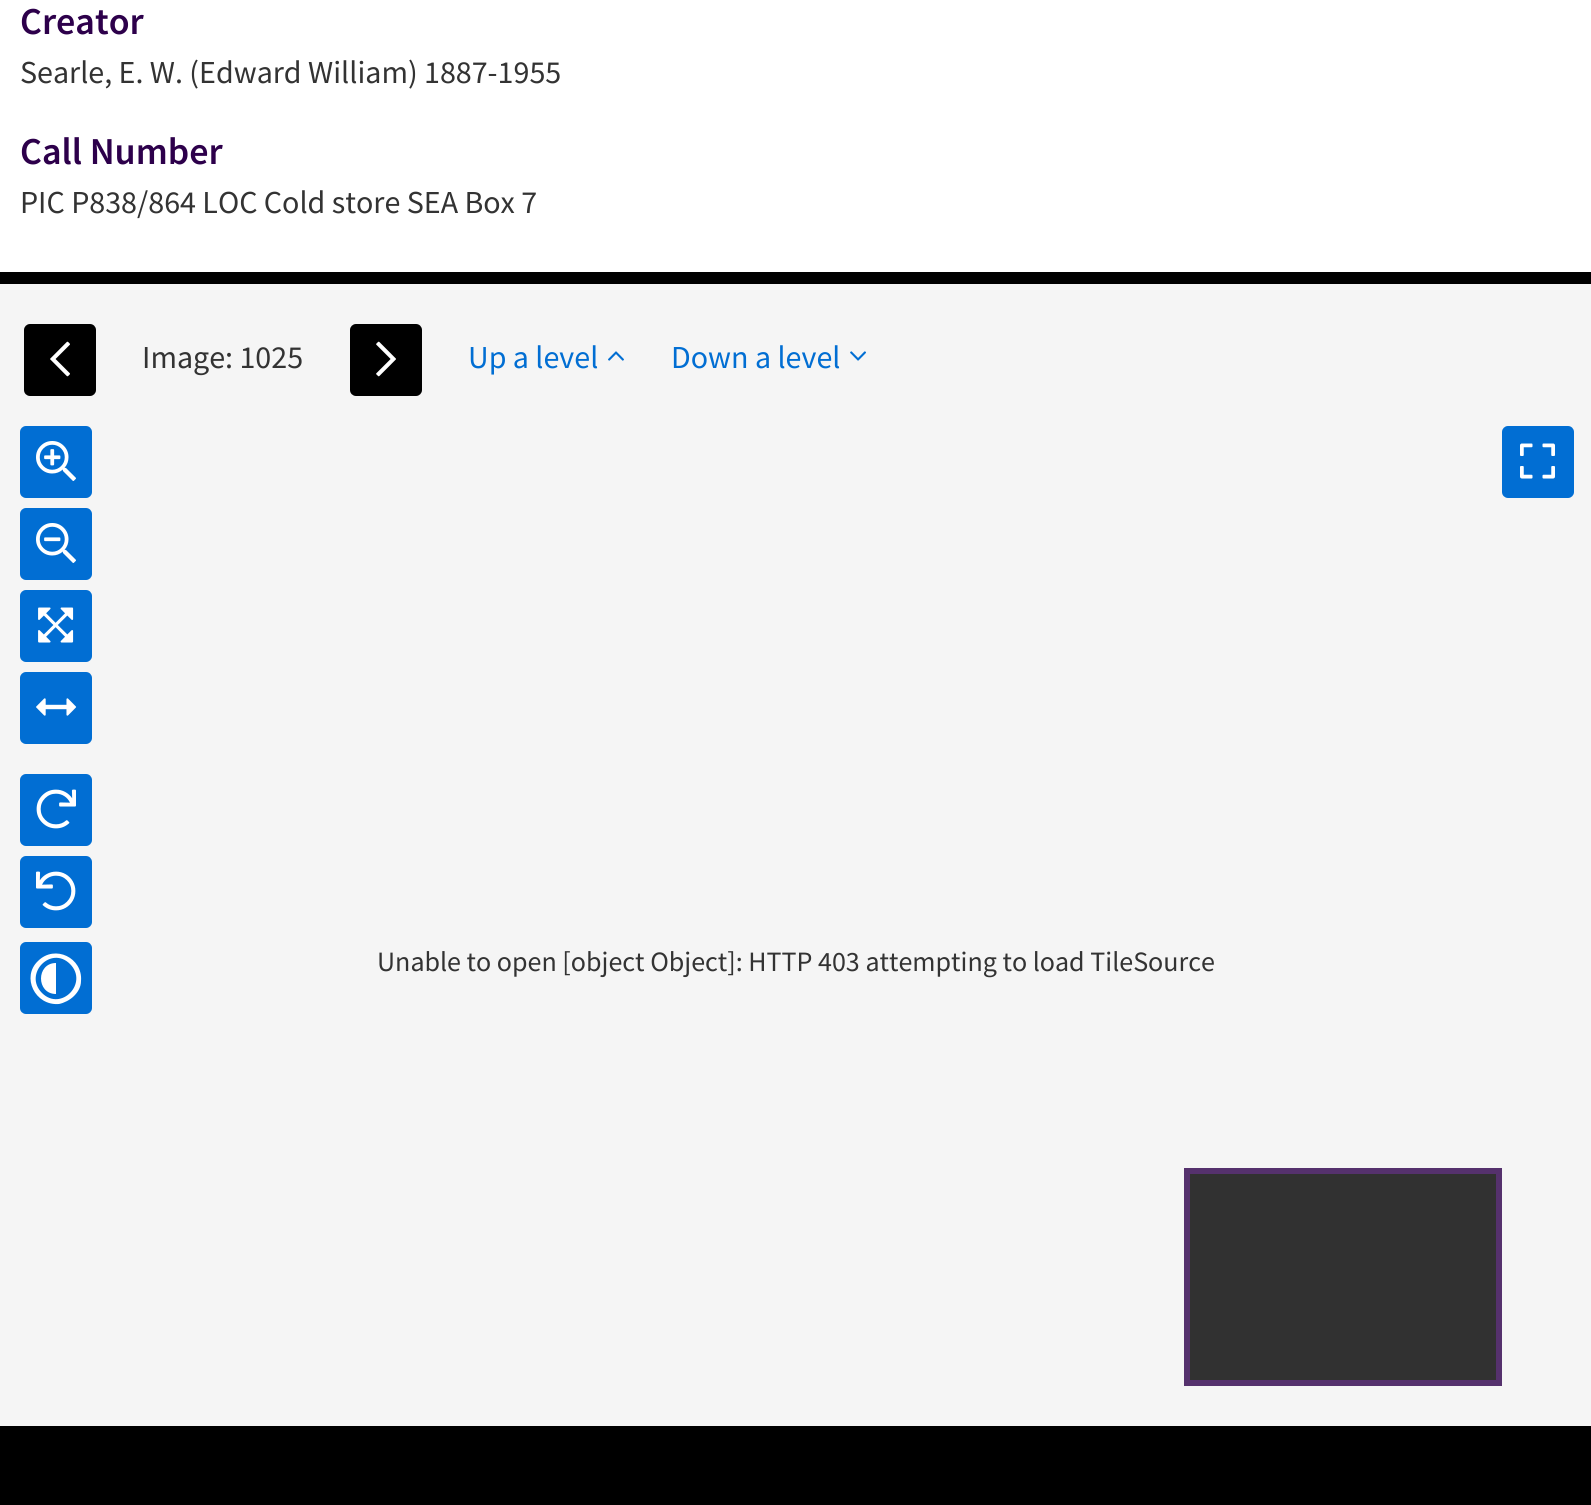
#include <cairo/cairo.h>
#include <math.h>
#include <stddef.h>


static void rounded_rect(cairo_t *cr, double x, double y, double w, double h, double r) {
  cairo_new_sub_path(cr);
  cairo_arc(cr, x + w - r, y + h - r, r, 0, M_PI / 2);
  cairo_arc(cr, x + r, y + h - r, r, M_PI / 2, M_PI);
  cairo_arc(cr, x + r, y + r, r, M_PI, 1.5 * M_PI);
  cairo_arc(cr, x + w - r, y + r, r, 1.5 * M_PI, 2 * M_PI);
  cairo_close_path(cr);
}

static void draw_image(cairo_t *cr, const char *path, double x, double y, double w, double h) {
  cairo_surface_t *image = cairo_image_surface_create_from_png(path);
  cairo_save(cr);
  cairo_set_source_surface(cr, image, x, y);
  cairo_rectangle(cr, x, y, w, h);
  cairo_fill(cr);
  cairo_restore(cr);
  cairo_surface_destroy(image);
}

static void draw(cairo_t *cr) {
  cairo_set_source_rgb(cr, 1, 1, 1);
  cairo_paint(cr);
  cairo_set_source_rgb(cr, 0, 0, 0);
  cairo_rectangle(cr, 0, 272, 1591, 12);
  cairo_fill(cr);
  cairo_set_source_rgb(cr, 245 / 255.0, 245 / 255.0, 245 / 255.0);
  cairo_rectangle(cr, 0, 284, 1591, 1142);
  cairo_fill(cr);
  cairo_set_source_rgb(cr, 0, 0, 0);
  rounded_rect(cr, 26, 326, 68, 68, 4);
  cairo_fill_preserve(cr);
  cairo_set_line_width(cr, 4);
  cairo_stroke(cr);
  draw_image(cr, "images/1.png", 50, 341, 20, 36);
  rounded_rect(cr, 352, 326, 68, 68, 4);
  cairo_fill_preserve(cr);
  cairo_stroke(cr);
  draw_image(cr, "images/2.png", 376, 341, 20, 36);
  draw_image(cr, "images/3.png", 608, 351, 16, 10);
  draw_image(cr, "images/4.png", 850, 351, 16, 10);
  cairo_set_source_rgb(cr, 1 / 255.0, 110 / 255.0, 211 / 255.0);
  rounded_rect(cr, 22, 428, 68, 68, 4);
  cairo_fill_preserve(cr);
  cairo_stroke(cr);
  draw_image(cr, "images/5.png", 36, 441, 40, 40);
  rounded_rect(cr, 22, 510, 68, 68, 4);
  cairo_fill_preserve(cr);
  cairo_stroke(cr);
  draw_image(cr, "images/6.png", 36, 523, 40, 40);
  rounded_rect(cr, 22, 592, 68, 68, 4);
  cairo_fill_preserve(cr);
  cairo_stroke(cr);
  draw_image(cr, "images/7.png", 38, 607, 36, 36);
  rounded_rect(cr, 22, 674, 68, 68, 4);
  cairo_fill_preserve(cr);
  cairo_stroke(cr);
  draw_image(cr, "images/8.png", 36, 698, 41, 18);
  rounded_rect(cr, 22, 776, 68, 68, 4);
  cairo_fill_preserve(cr);
  cairo_stroke(cr);
  draw_image(cr, "images/9.png", 36, 789, 40, 40);
  rounded_rect(cr, 22, 858, 68, 68, 4);
  cairo_fill_preserve(cr);
  cairo_stroke(cr);
  draw_image(cr, "images/10.png", 36, 871, 40, 40);
  rounded_rect(cr, 22, 944, 68, 68, 4);
  cairo_fill_preserve(cr);
  cairo_stroke(cr);
  cairo_set_source_rgb(cr, 1, 1, 1);
  cairo_new_path(cr);
  cairo_move_to(cr, 70, 964);
  cairo_curve_to(cr, 51, 945, 23, 974, 42, 993);
  cairo_curve_to(cr, 61, 1012, 89, 983, 70, 964);
  cairo_close_path(cr);
  cairo_move_to(cr, 38, 961);
  cairo_curve_to(cr, 55, 944, 83, 958, 81, 981);
  cairo_curve_to(cr, 81, 987, 78, 992, 74, 996);
  cairo_curve_to(cr, 70, 1000, 64, 1003, 59, 1004);
  cairo_curve_to(cr, 35, 1006, 21, 977, 38, 961);
  cairo_close_path(cr);
  cairo_move_to(cr, 56, 963);
  cairo_line_to(cr, 56, 994);
  cairo_curve_to(cr, 36, 994, 36, 963, 56, 963);
  cairo_close_path(cr);
  cairo_fill(cr);
  cairo_set_source_rgb(cr, 1 / 255.0, 110 / 255.0, 211 / 255.0);
  rounded_rect(cr, 1504, 428, 68, 68, 4);
  cairo_fill_preserve(cr);
  cairo_stroke(cr);
  draw_image(cr, "images/11.png", 1520, 443, 35, 36);
  cairo_set_source_rgb(cr, 49 / 255.0, 49 / 255.0, 49 / 255.0);
  cairo_rectangle(cr, 1187, 1171, 312, 212);
  cairo_fill_preserve(cr);
  cairo_set_source_rgb(cr, 85 / 255.0, 49 / 255.0, 109 / 255.0);
  cairo_set_line_width(cr, 6);
  cairo_stroke(cr);
  cairo_set_source_rgb(cr, 0, 0, 0);
  cairo_rectangle(cr, 0, 1426, 1591, 79);
  cairo_fill(cr);
  cairo_select_font_face(cr, "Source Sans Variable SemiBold", CAIRO_FONT_SLANT_NORMAL, CAIRO_FONT_WEIGHT_NORMAL);
  cairo_set_font_size(cr, 38);
  cairo_set_source_rgb(cr, 45 / 255.0, 0, 75 / 255.0);
  cairo_move_to(cr, 20, 34);
  cairo_show_text(cr, "Creator");
  cairo_select_font_face(cr, "Source Sans Variable", CAIRO_FONT_SLANT_NORMAL, CAIRO_FONT_WEIGHT_NORMAL);
  cairo_set_font_size(cr, 32);
  cairo_set_source_rgb(cr, 51 / 255.0, 51 / 255.0, 51 / 255.0);
  cairo_move_to(cr, 20, 83);
  cairo_show_text(cr, "Searle, E. W. (Edward William) 1887-1955");
  cairo_select_font_face(cr, "Source Sans Variable SemiBold", CAIRO_FONT_SLANT_NORMAL, CAIRO_FONT_WEIGHT_NORMAL);
  cairo_set_font_size(cr, 38);
  cairo_set_source_rgb(cr, 45 / 255.0, 0, 75 / 255.0);
  cairo_move_to(cr, 20, 164);
  cairo_show_text(cr, "Call Number");
  cairo_select_font_face(cr, "Source Sans Variable", CAIRO_FONT_SLANT_NORMAL, CAIRO_FONT_WEIGHT_NORMAL);
  cairo_set_font_size(cr, 32);
  cairo_set_source_rgb(cr, 51 / 255.0, 51 / 255.0, 51 / 255.0);
  cairo_move_to(cr, 20, 213);
  cairo_show_text(cr, "PIC P838/864 LOC Cold store SEA Box 7");
  cairo_move_to(cr, 142, 368);
  cairo_show_text(cr, "Image: 1025");
  cairo_set_source_rgb(cr, 1 / 255.0, 110 / 255.0, 211 / 255.0);
  cairo_move_to(cr, 468, 368);
  cairo_show_text(cr, "Up a level");
  cairo_move_to(cr, 671, 368);
  cairo_show_text(cr, "Down a level");
  cairo_set_font_size(cr, 28);
  cairo_set_source_rgb(cr, 51 / 255.0, 51 / 255.0, 51 / 255.0);
  cairo_move_to(cr, 377, 971);
  cairo_show_text(cr, "Unable to open [object Object]: HTTP 403 attempting to load TileSource");
}

int main(void) {
  cairo_surface_t *surface = cairo_image_surface_create(CAIRO_FORMAT_RGB24, 1591, 1505);
  cairo_t *cr = cairo_create(surface);
  cairo_font_options_t *options = cairo_font_options_create();
  cairo_font_options_set_hint_metrics(options, CAIRO_HINT_METRICS_OFF);
  cairo_font_options_set_hint_style(options, CAIRO_HINT_STYLE_NONE);
  cairo_set_font_options(cr, options);
  cairo_set_miter_limit(cr, 4);
  draw(cr);
  cairo_surface_write_to_png(surface, "out.png");
  cairo_font_options_destroy(options);
  cairo_destroy(cr);
  cairo_surface_destroy(surface);
  return 0;
}
